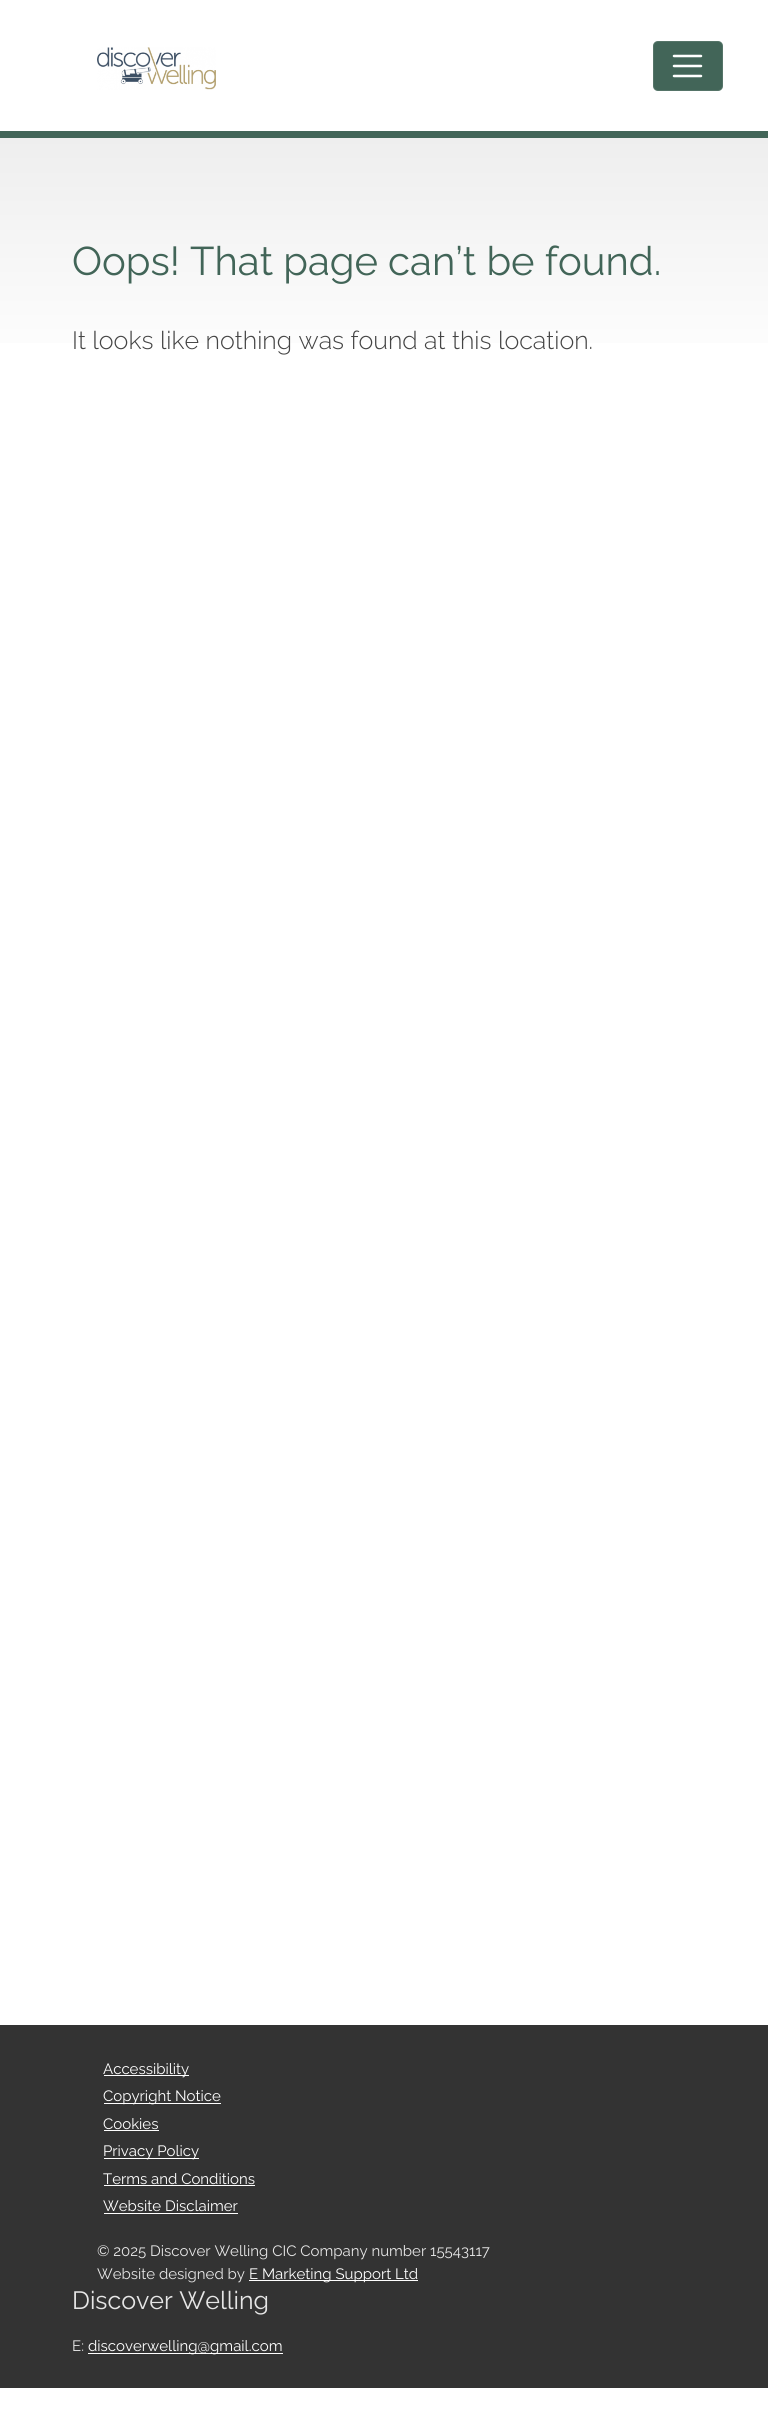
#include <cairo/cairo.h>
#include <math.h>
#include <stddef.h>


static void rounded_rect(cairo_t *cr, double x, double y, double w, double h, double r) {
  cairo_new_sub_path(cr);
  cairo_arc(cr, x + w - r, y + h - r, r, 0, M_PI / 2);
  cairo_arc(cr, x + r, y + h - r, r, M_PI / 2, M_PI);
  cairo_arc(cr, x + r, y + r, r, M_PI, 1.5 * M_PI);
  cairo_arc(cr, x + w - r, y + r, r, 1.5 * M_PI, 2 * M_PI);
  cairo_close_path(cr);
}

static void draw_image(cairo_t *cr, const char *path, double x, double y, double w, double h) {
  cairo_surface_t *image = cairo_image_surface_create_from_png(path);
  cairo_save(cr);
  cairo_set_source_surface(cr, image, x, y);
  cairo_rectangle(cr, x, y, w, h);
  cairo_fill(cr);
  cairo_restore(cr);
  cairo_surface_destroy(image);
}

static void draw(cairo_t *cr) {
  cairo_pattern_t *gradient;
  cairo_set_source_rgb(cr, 1, 1, 1);
  cairo_paint(cr);
  cairo_set_source_rgb(cr, 66 / 255.0, 101 / 255.0, 88 / 255.0);
  cairo_rectangle(cr, 0, 131, 768, 7);
  cairo_fill(cr);
  draw_image(cr, "images/1.png", 97, 47, 119, 43);
  rounded_rect(cr, 653, 41, 70, 50, 5);
  cairo_fill(cr);
  rounded_rect(cr, 653.5, 41.5, 69, 49, 4.5);
  cairo_set_source_rgba(cr, 1, 1, 1, 0.1);
  cairo_set_line_width(cr, 1);
  cairo_stroke(cr);
  cairo_new_path(cr);
  cairo_move_to(cr, 674, 56);
  cairo_line_to(cr, 701, 56);
  cairo_move_to(cr, 674, 66);
  cairo_line_to(cr, 701, 66);
  cairo_move_to(cr, 674, 76);
  cairo_line_to(cr, 701, 76);
  cairo_set_source_rgb(cr, 1, 1, 1);
  cairo_set_line_width(cr, 2.5);
  cairo_set_line_cap(cr, CAIRO_LINE_CAP_ROUND);
  cairo_stroke(cr);
  gradient = cairo_pattern_create_linear(384, 137, 384, 379);
  cairo_pattern_add_color_stop_rgba(gradient, 0, 238 / 255.0, 238 / 255.0, 238 / 255.0, 1);
  cairo_pattern_add_color_stop_rgba(gradient, 1, 1, 1, 1, 1);
  cairo_set_source(cr, gradient);
  cairo_pattern_destroy(gradient);
  cairo_rectangle(cr, 0, 138, 768, 205);
  cairo_fill(cr);
  cairo_set_source_rgb(cr, 51 / 255.0, 51 / 255.0, 51 / 255.0);
  cairo_rectangle(cr, 0, 2025, 768, 363);
  cairo_fill(cr);
  cairo_set_source_rgb(cr, 1, 1, 1);
  cairo_rectangle(cr, 104, 2075, 85, 1);
  cairo_fill(cr);
  cairo_rectangle(cr, 104, 2103, 117, 1);
  cairo_fill(cr);
  cairo_rectangle(cr, 104, 2130, 55, 1);
  cairo_fill(cr);
  cairo_rectangle(cr, 104, 2158, 95, 1);
  cairo_fill(cr);
  cairo_rectangle(cr, 104, 2185, 151, 1);
  cairo_fill(cr);
  cairo_rectangle(cr, 104, 2213, 134, 1);
  cairo_fill(cr);
  cairo_rectangle(cr, 249, 2280, 169, 1);
  cairo_fill(cr);
  cairo_rectangle(cr, 88, 2353, 195, 1);
  cairo_fill(cr);
  cairo_select_font_face(cr, "Raleway", CAIRO_FONT_SLANT_NORMAL, CAIRO_FONT_WEIGHT_NORMAL);
  cairo_set_font_size(cr, 40);
  cairo_set_source_rgb(cr, 66 / 255.0, 101 / 255.0, 88 / 255.0);
  cairo_move_to(cr, 72, 275);
  cairo_show_text(cr, "Oops! That page can’t be found.");
  cairo_select_font_face(cr, "Raleway Light", CAIRO_FONT_SLANT_NORMAL, CAIRO_FONT_WEIGHT_NORMAL);
  cairo_set_font_size(cr, 25);
  cairo_set_source_rgb(cr, 68 / 255.0, 68 / 255.0, 68 / 255.0);
  cairo_move_to(cr, 72, 349);
  cairo_show_text(cr, "It looks like nothing was found at this location.");
  cairo_select_font_face(cr, "Raleway", CAIRO_FONT_SLANT_NORMAL, CAIRO_FONT_WEIGHT_NORMAL);
  cairo_set_font_size(cr, 15);
  cairo_set_source_rgb(cr, 1, 1, 1);
  cairo_move_to(cr, 103, 2074);
  cairo_show_text(cr, "Accessibility");
  cairo_move_to(cr, 103, 2101);
  cairo_show_text(cr, "Copyright Notice");
  cairo_move_to(cr, 103, 2129);
  cairo_show_text(cr, "Cookies");
  cairo_move_to(cr, 103, 2156);
  cairo_show_text(cr, "Privacy Policy");
  cairo_move_to(cr, 103, 2184);
  cairo_show_text(cr, "Terms and Conditions");
  cairo_move_to(cr, 103, 2211);
  cairo_show_text(cr, "Website Disclaimer");
  cairo_set_source_rgb(cr, 230 / 255.0, 230 / 255.0, 230 / 255.0);
  cairo_move_to(cr, 97, 2256);
  cairo_show_text(cr, "© 2025 Discover Welling CIC Company number 15543117");
  cairo_move_to(cr, 97, 2279);
  cairo_show_text(cr, "Website designed by");
  cairo_set_source_rgb(cr, 1, 1, 1);
  cairo_move_to(cr, 249, 2279);
  cairo_show_text(cr, "E Marketing Support Ltd");
  cairo_set_font_size(cr, 25);
  cairo_set_source_rgb(cr, 230 / 255.0, 230 / 255.0, 230 / 255.0);
  cairo_move_to(cr, 72, 2309);
  cairo_show_text(cr, "Discover Welling");
  cairo_set_font_size(cr, 15);
  cairo_move_to(cr, 72, 2351);
  cairo_show_text(cr, "E:");
  cairo_set_source_rgb(cr, 1, 1, 1);
  cairo_move_to(cr, 88, 2351);
  cairo_show_text(cr, "discoverwelling@gmail.com");
}

int main(void) {
  cairo_surface_t *surface = cairo_image_surface_create(CAIRO_FORMAT_RGB24, 768, 2424);
  cairo_t *cr = cairo_create(surface);
  cairo_font_options_t *options = cairo_font_options_create();
  cairo_font_options_set_hint_metrics(options, CAIRO_HINT_METRICS_OFF);
  cairo_font_options_set_hint_style(options, CAIRO_HINT_STYLE_NONE);
  cairo_set_font_options(cr, options);
  cairo_set_miter_limit(cr, 4);
  draw(cr);
  cairo_surface_write_to_png(surface, "out.png");
  cairo_font_options_destroy(options);
  cairo_destroy(cr);
  cairo_surface_destroy(surface);
  return 0;
}
